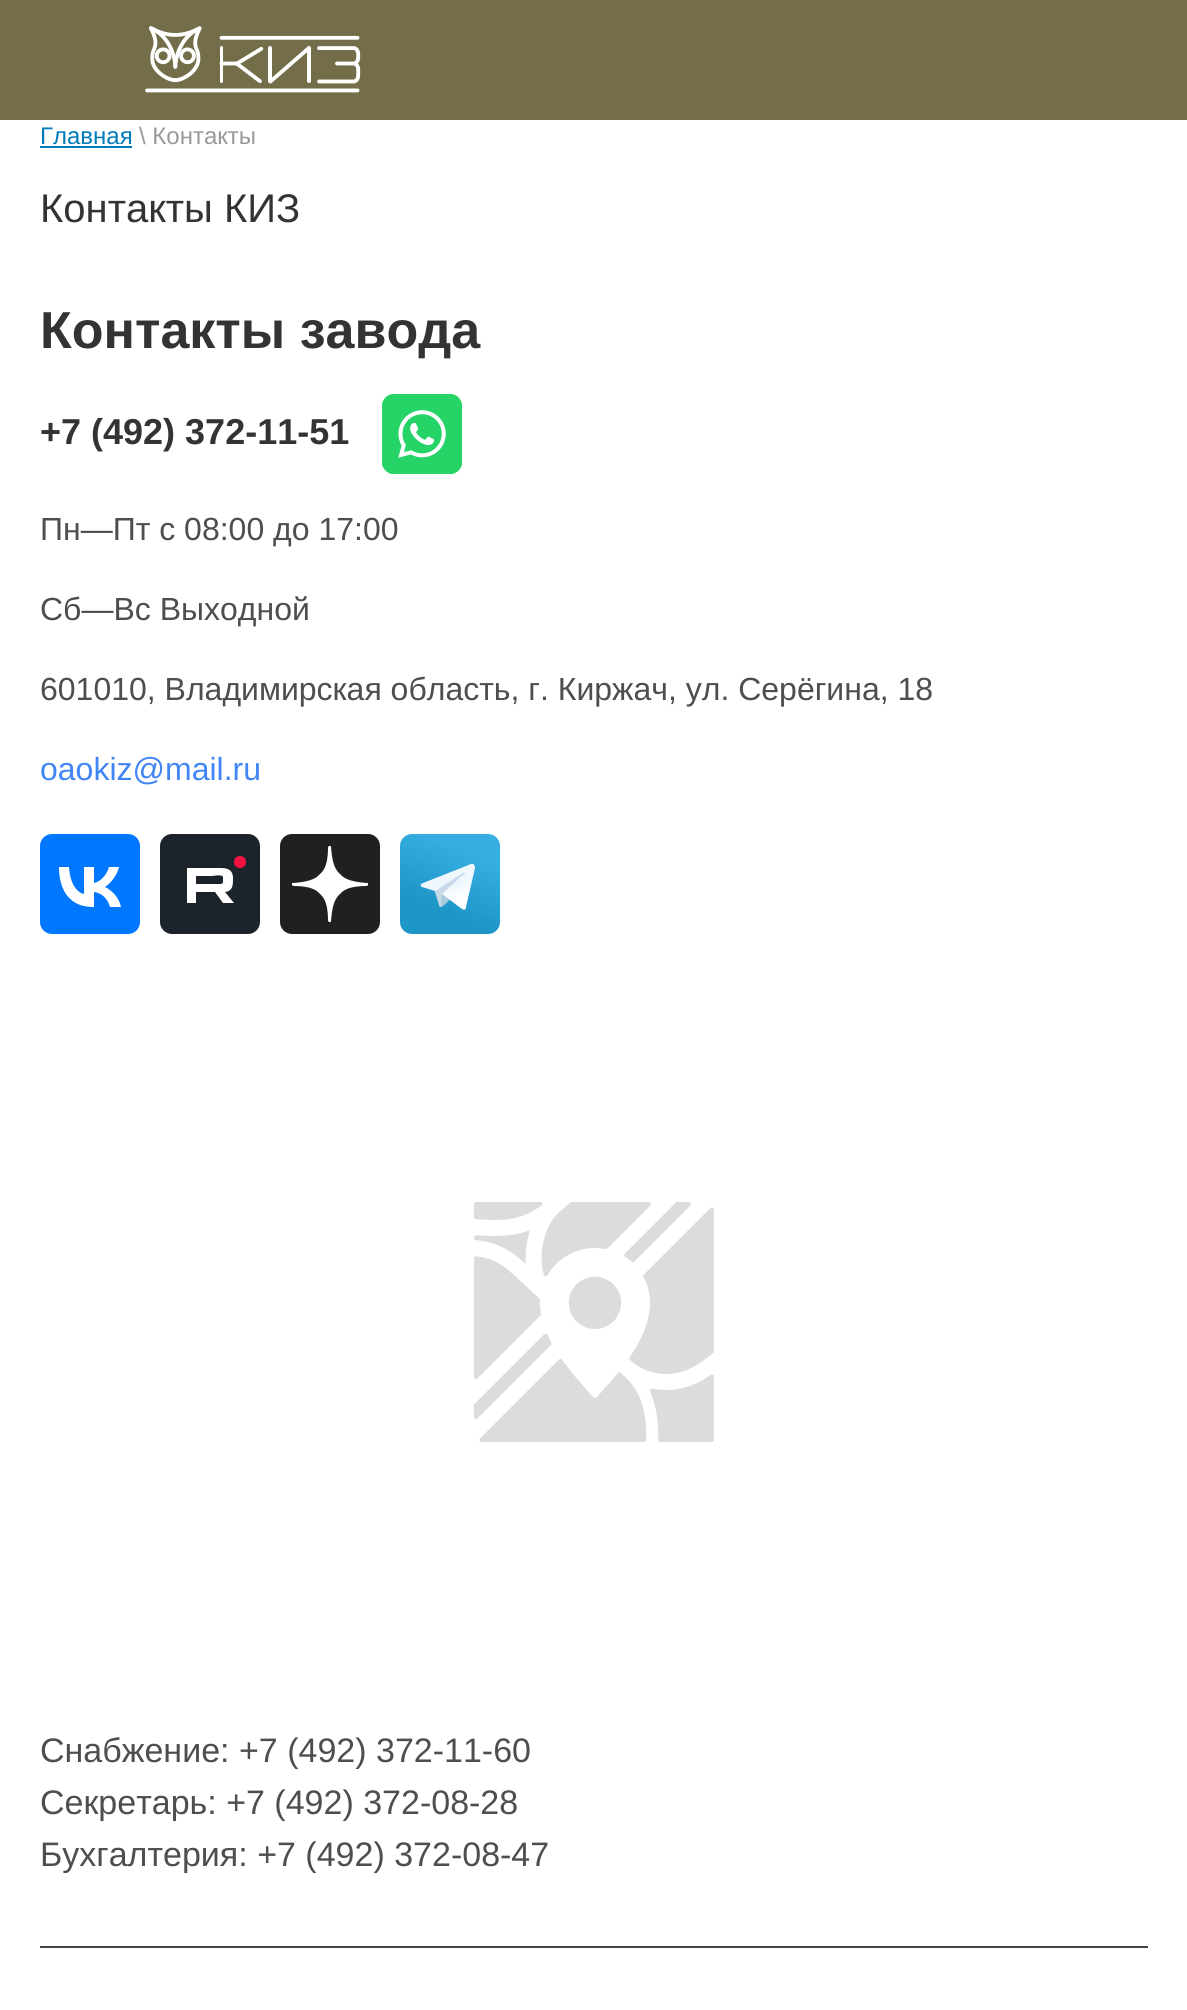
#include <cairo/cairo.h>
#include <math.h>
#include <stddef.h>


static void rounded_rect(cairo_t *cr, double x, double y, double w, double h, double r) {
  cairo_new_sub_path(cr);
  cairo_arc(cr, x + w - r, y + h - r, r, 0, M_PI / 2);
  cairo_arc(cr, x + r, y + h - r, r, M_PI / 2, M_PI);
  cairo_arc(cr, x + r, y + r, r, M_PI, 1.5 * M_PI);
  cairo_arc(cr, x + w - r, y + r, r, 1.5 * M_PI, 2 * M_PI);
  cairo_close_path(cr);
}

static void draw_image(cairo_t *cr, const char *path, double x, double y, double w, double h) {
  cairo_surface_t *image = cairo_image_surface_create_from_png(path);
  cairo_save(cr);
  cairo_set_source_surface(cr, image, x, y);
  cairo_rectangle(cr, x, y, w, h);
  cairo_fill(cr);
  cairo_restore(cr);
  cairo_surface_destroy(image);
}

static void draw(cairo_t *cr) {
  cairo_pattern_t *gradient;
  cairo_set_source_rgb(cr, 1, 1, 1);
  cairo_paint(cr);
  cairo_set_source_rgb(cr, 115 / 255.0, 109 / 255.0, 73 / 255.0);
  cairo_rectangle(cr, 0, 0, 1187, 120);
  cairo_fill(cr);
  draw_image(cr, "images/1.png", 145, 26, 216, 67);
  cairo_set_source_rgb(cr, 0, 123 / 255.0, 186 / 255.0);
  cairo_rectangle(cr, 40, 146, 92, 2);
  cairo_fill(cr);
  draw_image(cr, "images/2.png", 382, 394, 80, 80);
  cairo_set_source_rgb(cr, 0, 119 / 255.0, 1);
  rounded_rect(cr, 40, 834, 100, 100, 12);
  cairo_fill(cr);
  cairo_set_source_rgb(cr, 1, 1, 1);
  cairo_new_path(cr);
  cairo_move_to(cr, 93, 907);
  cairo_curve_to(cr, 71, 907, 59, 892, 59, 867);
  cairo_line_to(cr, 69, 867);
  cairo_curve_to(cr, 70, 885, 78, 893, 84, 894);
  cairo_line_to(cr, 84, 867);
  cairo_line_to(cr, 94, 867);
  cairo_line_to(cr, 94, 883);
  cairo_curve_to(cr, 100, 882, 107, 875, 109, 867);
  cairo_line_to(cr, 119, 867);
  cairo_curve_to(cr, 117, 875, 112, 882, 105, 887);
  cairo_curve_to(cr, 113, 891, 119, 898, 121, 907);
  cairo_line_to(cr, 110, 907);
  cairo_curve_to(cr, 108, 899, 102, 893, 94, 892);
  cairo_line_to(cr, 94, 907);
  cairo_close_path(cr);
  cairo_fill(cr);
  cairo_set_source_rgb(cr, 28 / 255.0, 35 / 255.0, 43 / 255.0);
  rounded_rect(cr, 160, 834, 100, 100, 12);
  cairo_fill(cr);
  cairo_set_source_rgb(cr, 1, 1, 1);
  cairo_new_path(cr);
  cairo_move_to(cr, 221, 868);
  cairo_line_to(cr, 187, 868);
  cairo_line_to(cr, 187, 903);
  cairo_line_to(cr, 196, 903);
  cairo_line_to(cr, 196, 892);
  cairo_line_to(cr, 215, 892);
  cairo_line_to(cr, 223, 903);
  cairo_line_to(cr, 234, 903);
  cairo_line_to(cr, 225, 892);
  cairo_curve_to(cr, 233, 891, 233, 885, 233, 878);
  cairo_curve_to(cr, 233, 871, 229, 868, 221, 868);
  cairo_close_path(cr);
  cairo_move_to(cr, 220, 884);
  cairo_line_to(cr, 196, 884);
  cairo_line_to(cr, 196, 876);
  cairo_line_to(cr, 212, 876);
  cairo_curve_to(cr, 213, 876, 222, 874, 223, 877);
  cairo_line_to(cr, 223, 880);
  cairo_curve_to(cr, 223, 883, 223, 884, 220, 884);
  cairo_close_path(cr);
  cairo_fill(cr);
  cairo_set_source_rgb(cr, 244 / 255.0, 18 / 255.0, 64 / 255.0);
  cairo_new_path(cr);
  cairo_move_to(cr, 240, 868);
  cairo_curve_to(cr, 248, 868, 248, 856, 240, 856);
  cairo_curve_to(cr, 232, 856, 232, 868, 240, 868);
  cairo_close_path(cr);
  cairo_fill(cr);
  cairo_set_source_rgb(cr, 32 / 255.0, 32 / 255.0, 34 / 255.0);
  rounded_rect(cr, 280, 834, 100, 100, 12);
  cairo_fill(cr);
  cairo_set_source_rgb(cr, 1, 1, 1);
  cairo_new_path(cr);
  cairo_move_to(cr, 368, 883);
  cairo_line_to(cr, 367, 883);
  cairo_curve_to(cr, 354, 882, 345, 880, 340, 874);
  cairo_curve_to(cr, 334, 869, 332, 860, 331, 847);
  cairo_line_to(cr, 331, 846);
  cairo_line_to(cr, 329, 846);
  cairo_line_to(cr, 328, 847);
  cairo_curve_to(cr, 328, 860, 326, 869, 320, 874);
  cairo_curve_to(cr, 315, 880, 306, 882, 293, 883);
  cairo_line_to(cr, 292, 883);
  cairo_line_to(cr, 292, 885);
  cairo_line_to(cr, 293, 886);
  cairo_curve_to(cr, 306, 886, 315, 888, 320, 894);
  cairo_curve_to(cr, 326, 899, 328, 908, 328, 921);
  cairo_line_to(cr, 329, 922);
  cairo_line_to(cr, 331, 922);
  cairo_line_to(cr, 331, 921);
  cairo_curve_to(cr, 332, 908, 334, 899, 340, 894);
  cairo_curve_to(cr, 345, 888, 354, 886, 367, 886);
  cairo_line_to(cr, 368, 885);
  cairo_close_path(cr);
  cairo_fill(cr);
  gradient = cairo_pattern_create_linear(467, 851, 442, 909);
  cairo_pattern_add_color_stop_rgba(gradient, 0, 55 / 255.0, 174 / 255.0, 226 / 255.0, 1);
  cairo_pattern_add_color_stop_rgba(gradient, 1, 30 / 255.0, 150 / 255.0, 200 / 255.0, 1);
  cairo_set_source(cr, gradient);
  cairo_pattern_destroy(gradient);
  rounded_rect(cr, 400, 834, 100, 100, 12);
  cairo_fill(cr);
  cairo_set_source_rgb(cr, 200 / 255.0, 218 / 255.0, 234 / 255.0);
  cairo_set_fill_rule(cr, CAIRO_FILL_RULE_EVEN_ODD);
  cairo_new_path(cr);
  cairo_move_to(cr, 441, 907);
  cairo_line_to(cr, 439.5, 906.5);
  cairo_line_to(cr, 434, 889);
  cairo_line_to(cr, 471, 867.5);
  cairo_fill(cr);
  cairo_set_source_rgb(cr, 169 / 255.0, 201 / 255.0, 221 / 255.0);
  cairo_new_path(cr);
  cairo_move_to(cr, 441, 907);
  cairo_curve_to(cr, 443, 907, 448.5, 901, 450, 899);
  cairo_line_to(cr, 441.5, 894);
  cairo_fill(cr);
  gradient = cairo_pattern_create_linear(454, 884, 459, 901);
  cairo_pattern_add_color_stop_rgba(gradient, 0, 239 / 255.0, 247 / 255.0, 252 / 255.0, 1);
  cairo_pattern_add_color_stop_rgba(gradient, 1, 1, 1, 1, 1);
  cairo_set_source(cr, gradient);
  cairo_pattern_destroy(gradient);
  cairo_new_path(cr);
  cairo_move_to(cr, 442, 894);
  cairo_line_to(cr, 462, 909);
  cairo_curve_to(cr, 464, 910, 466, 910, 466, 907);
  cairo_line_to(cr, 475, 868);
  cairo_curve_to(cr, 475, 865, 473, 863, 471, 864);
  cairo_line_to(cr, 423, 883);
  cairo_curve_to(cr, 420, 884, 420, 886, 422, 887);
  cairo_line_to(cr, 435, 891);
  cairo_line_to(cr, 463, 873);
  cairo_curve_to(cr, 465, 872, 466, 872, 465, 873);
  cairo_fill(cr);
  draw_image(cr, "images/3.png", 474, 1202, 240, 240);
  cairo_set_source_rgb(cr, 68 / 255.0, 68 / 255.0, 68 / 255.0);
  cairo_rectangle(cr, 40, 1946, 1108, 2);
  cairo_fill(cr);
  cairo_select_font_face(cr, "Liberation Sans", CAIRO_FONT_SLANT_NORMAL, CAIRO_FONT_WEIGHT_NORMAL);
  cairo_set_font_size(cr, 24);
  cairo_set_source_rgb(cr, 0, 123 / 255.0, 186 / 255.0);
  cairo_move_to(cr, 40, 144);
  cairo_show_text(cr, "Главная");
  cairo_set_source_rgb(cr, 153 / 255.0, 153 / 255.0, 153 / 255.0);
  cairo_move_to(cr, 139, 144);
  cairo_show_text(cr, "\\ Контакты");
  cairo_set_font_size(cr, 40);
  cairo_set_source_rgb(cr, 51 / 255.0, 51 / 255.0, 51 / 255.0);
  cairo_move_to(cr, 40, 222);
  cairo_show_text(cr, "Контакты КИЗ");
  cairo_select_font_face(cr, "Liberation Sans", CAIRO_FONT_SLANT_NORMAL, CAIRO_FONT_WEIGHT_BOLD);
  cairo_set_font_size(cr, 52);
  cairo_move_to(cr, 40, 348);
  cairo_show_text(cr, "Контакты завода");
  cairo_set_font_size(cr, 36);
  cairo_move_to(cr, 40, 444);
  cairo_show_text(cr, "+7 (492) 372-11-51");
  cairo_select_font_face(cr, "Liberation Sans", CAIRO_FONT_SLANT_NORMAL, CAIRO_FONT_WEIGHT_NORMAL);
  cairo_set_font_size(cr, 32);
  cairo_set_source_rgb(cr, 78 / 255.0, 78 / 255.0, 78 / 255.0);
  cairo_move_to(cr, 40, 540);
  cairo_show_text(cr, "Пн—Пт с 08:00 до 17:00");
  cairo_move_to(cr, 40, 620);
  cairo_show_text(cr, "Сб—Вс Выходной");
  cairo_move_to(cr, 40, 700);
  cairo_show_text(cr, "601010, Владимирская область, г. Киржач, ул. Серёгина, 18");
  cairo_set_source_rgb(cr, 66 / 255.0, 133 / 255.0, 244 / 255.0);
  cairo_move_to(cr, 40, 780);
  cairo_show_text(cr, "oaokiz@mail.ru");
  cairo_set_font_size(cr, 34);
  cairo_set_source_rgb(cr, 78 / 255.0, 78 / 255.0, 78 / 255.0);
  cairo_move_to(cr, 40, 1762);
  cairo_show_text(cr, "Снабжение: +7 (492) 372-11-60");
  cairo_move_to(cr, 40, 1814);
  cairo_show_text(cr, "Секретарь: +7 (492) 372-08-28");
  cairo_move_to(cr, 40, 1866);
  cairo_show_text(cr, "Бухгалтерия: +7 (492) 372-08-47");
}

int main(void) {
  cairo_surface_t *surface = cairo_image_surface_create(CAIRO_FORMAT_RGB24, 1187, 2010);
  cairo_t *cr = cairo_create(surface);
  cairo_font_options_t *options = cairo_font_options_create();
  cairo_font_options_set_hint_metrics(options, CAIRO_HINT_METRICS_OFF);
  cairo_font_options_set_hint_style(options, CAIRO_HINT_STYLE_NONE);
  cairo_set_font_options(cr, options);
  cairo_set_miter_limit(cr, 4);
  draw(cr);
  cairo_surface_write_to_png(surface, "out.png");
  cairo_font_options_destroy(options);
  cairo_destroy(cr);
  cairo_surface_destroy(surface);
  return 0;
}
